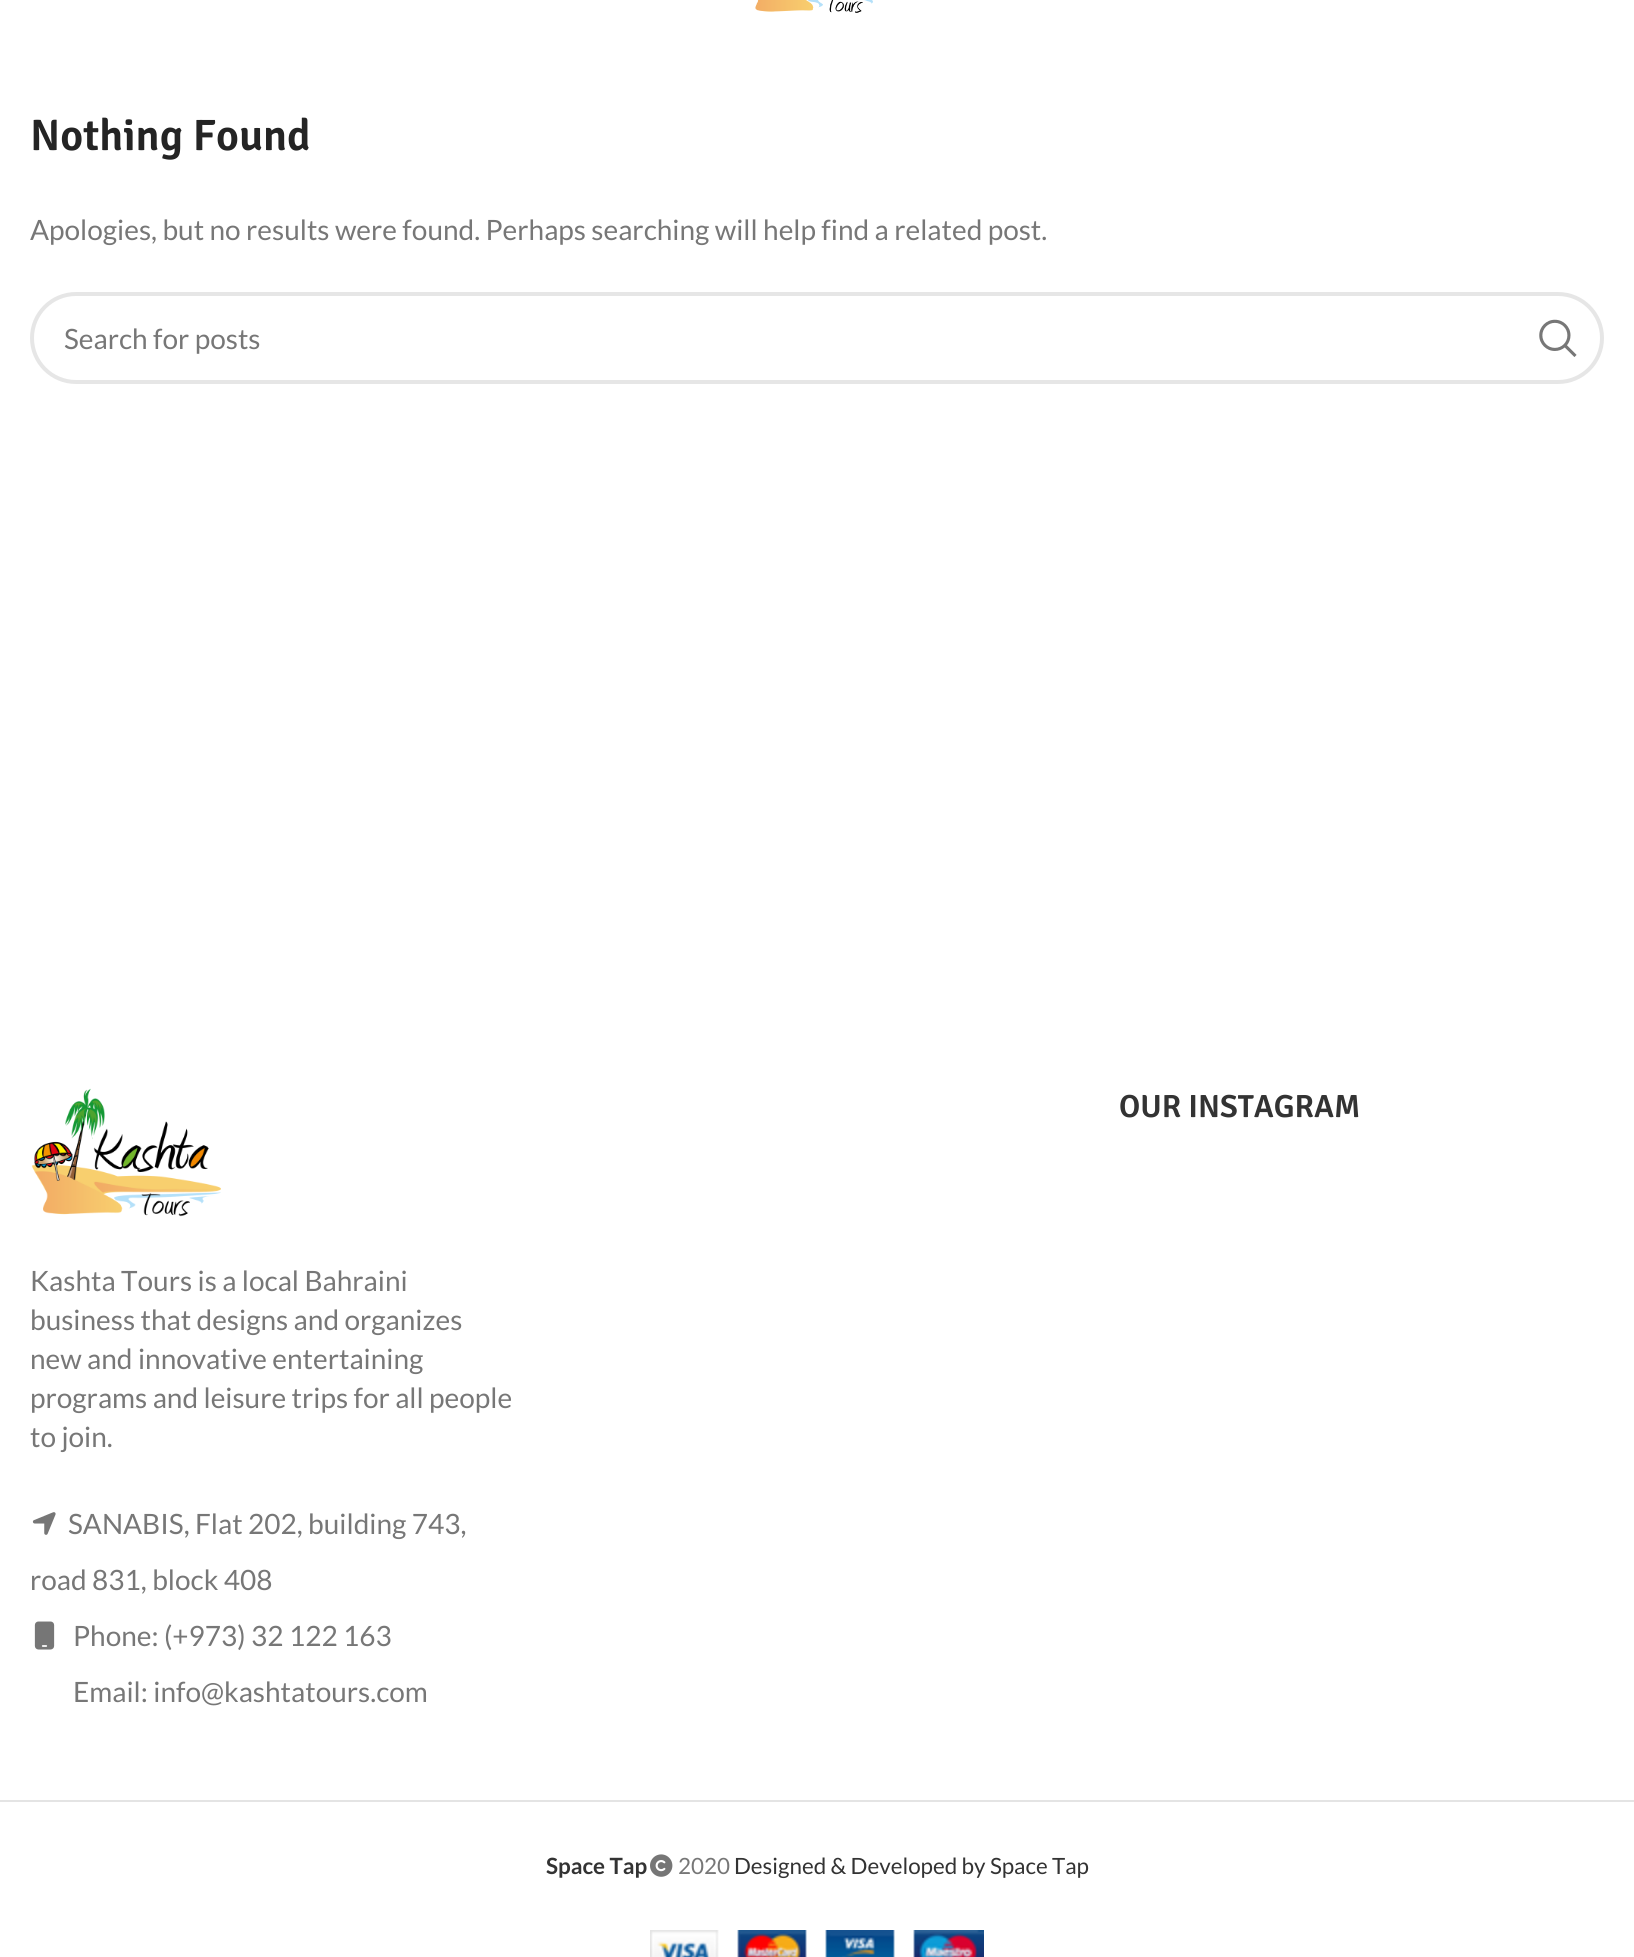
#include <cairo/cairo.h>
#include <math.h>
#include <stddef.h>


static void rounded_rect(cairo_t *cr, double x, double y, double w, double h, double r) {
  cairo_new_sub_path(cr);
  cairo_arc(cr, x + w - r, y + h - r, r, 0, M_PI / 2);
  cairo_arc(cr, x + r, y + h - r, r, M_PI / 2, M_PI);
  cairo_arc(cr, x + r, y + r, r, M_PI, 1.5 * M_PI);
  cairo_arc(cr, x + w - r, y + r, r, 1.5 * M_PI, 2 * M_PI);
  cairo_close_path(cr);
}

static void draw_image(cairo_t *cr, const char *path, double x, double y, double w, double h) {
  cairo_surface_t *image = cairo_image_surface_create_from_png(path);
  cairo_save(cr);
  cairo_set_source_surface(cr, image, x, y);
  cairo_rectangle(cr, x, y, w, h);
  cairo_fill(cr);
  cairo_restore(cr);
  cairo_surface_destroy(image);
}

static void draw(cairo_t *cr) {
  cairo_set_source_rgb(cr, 1, 1, 1);
  cairo_paint(cr);
  draw_image(cr, "images/1.png", 755, 0, 118, 13);
  rounded_rect(cr, 32, 294, 1570, 88, 44);
  cairo_set_source_rgb(cr, 230 / 255.0, 230 / 255.0, 230 / 255.0);
  cairo_set_line_width(cr, 4);
  cairo_stroke(cr);
  draw_image(cr, "images/2.png", 1539, 319, 38, 38);
  draw_image(cr, "images/3.png", 31, 1088, 190, 129);
  draw_image(cr, "images/4.png", 32, 1512, 24, 23);
  draw_image(cr, "images/5.png", 34, 1621, 21, 29);
  cairo_set_source_rgb(cr, 228 / 255.0, 228 / 255.0, 228 / 255.0);
  cairo_rectangle(cr, 0, 1800, 1634, 2);
  cairo_fill(cr);
  draw_image(cr, "images/6.png", 650, 1854, 23, 23);
  draw_image(cr, "images/7.png", 650, 1930, 334, 27);
  cairo_select_font_face(cr, "Signika SemiBold", CAIRO_FONT_SLANT_NORMAL, CAIRO_FONT_WEIGHT_NORMAL);
  cairo_set_font_size(cr, 44);
  cairo_set_source_rgb(cr, 36 / 255.0, 36 / 255.0, 36 / 255.0);
  cairo_move_to(cr, 30, 150);
  cairo_show_text(cr, "Nothing Found");
  cairo_select_font_face(cr, "Lato", CAIRO_FONT_SLANT_NORMAL, CAIRO_FONT_WEIGHT_NORMAL);
  cairo_set_font_size(cr, 28);
  cairo_set_source_rgb(cr, 119 / 255.0, 119 / 255.0, 119 / 255.0);
  cairo_move_to(cr, 30, 240);
  cairo_show_text(cr, "Apologies, but no results were found. Perhaps searching will help find a related post.");
  cairo_move_to(cr, 64, 349);
  cairo_show_text(cr, "Search for posts");
  cairo_select_font_face(cr, "Signika SemiBold", CAIRO_FONT_SLANT_NORMAL, CAIRO_FONT_WEIGHT_NORMAL);
  cairo_set_font_size(cr, 32);
  cairo_set_source_rgb(cr, 51 / 255.0, 51 / 255.0, 51 / 255.0);
  cairo_move_to(cr, 1119, 1117);
  cairo_show_text(cr, "OUR INSTAGRAM");
  cairo_select_font_face(cr, "Lato", CAIRO_FONT_SLANT_NORMAL, CAIRO_FONT_WEIGHT_NORMAL);
  cairo_set_font_size(cr, 28);
  cairo_set_source_rgb(cr, 119 / 255.0, 119 / 255.0, 119 / 255.0);
  cairo_move_to(cr, 30, 1291);
  cairo_show_text(cr, "Kashta Tours is a local Bahraini");
  cairo_move_to(cr, 30, 1330);
  cairo_show_text(cr, "business that designs and organizes");
  cairo_move_to(cr, 30, 1369);
  cairo_show_text(cr, "new and innovative entertaining");
  cairo_move_to(cr, 30, 1408);
  cairo_show_text(cr, "programs and leisure trips for all people");
  cairo_move_to(cr, 30, 1447);
  cairo_show_text(cr, "to join.");
  cairo_move_to(cr, 68, 1534);
  cairo_show_text(cr, "SANABIS, Flat 202, building 743,");
  cairo_move_to(cr, 30, 1590);
  cairo_show_text(cr, "road 831, block 408");
  cairo_move_to(cr, 73, 1646);
  cairo_show_text(cr, "Phone: (+973) 32 122 163");
  cairo_move_to(cr, 73, 1702);
  cairo_show_text(cr, "Email: info@kashtatours.com");
  cairo_select_font_face(cr, "Lato", CAIRO_FONT_SLANT_NORMAL, CAIRO_FONT_WEIGHT_BOLD);
  cairo_set_font_size(cr, 22.4);
  cairo_set_source_rgb(cr, 51 / 255.0, 51 / 255.0, 51 / 255.0);
  cairo_move_to(cr, 546, 1874);
  cairo_show_text(cr, "Space Tap");
  cairo_select_font_face(cr, "Lato", CAIRO_FONT_SLANT_NORMAL, CAIRO_FONT_WEIGHT_NORMAL);
  cairo_set_source_rgb(cr, 119 / 255.0, 119 / 255.0, 119 / 255.0);
  cairo_move_to(cr, 678, 1874);
  cairo_show_text(cr, "2020");
  cairo_set_source_rgb(cr, 51 / 255.0, 51 / 255.0, 51 / 255.0);
  cairo_move_to(cr, 734, 1874);
  cairo_show_text(cr, "Designed & Developed by Space Tap");
}

int main(void) {
  cairo_surface_t *surface = cairo_image_surface_create(CAIRO_FORMAT_RGB24, 1634, 1957);
  cairo_t *cr = cairo_create(surface);
  cairo_font_options_t *options = cairo_font_options_create();
  cairo_font_options_set_hint_metrics(options, CAIRO_HINT_METRICS_OFF);
  cairo_font_options_set_hint_style(options, CAIRO_HINT_STYLE_NONE);
  cairo_set_font_options(cr, options);
  cairo_set_miter_limit(cr, 4);
  draw(cr);
  cairo_surface_write_to_png(surface, "out.png");
  cairo_font_options_destroy(options);
  cairo_destroy(cr);
  cairo_surface_destroy(surface);
  return 0;
}
